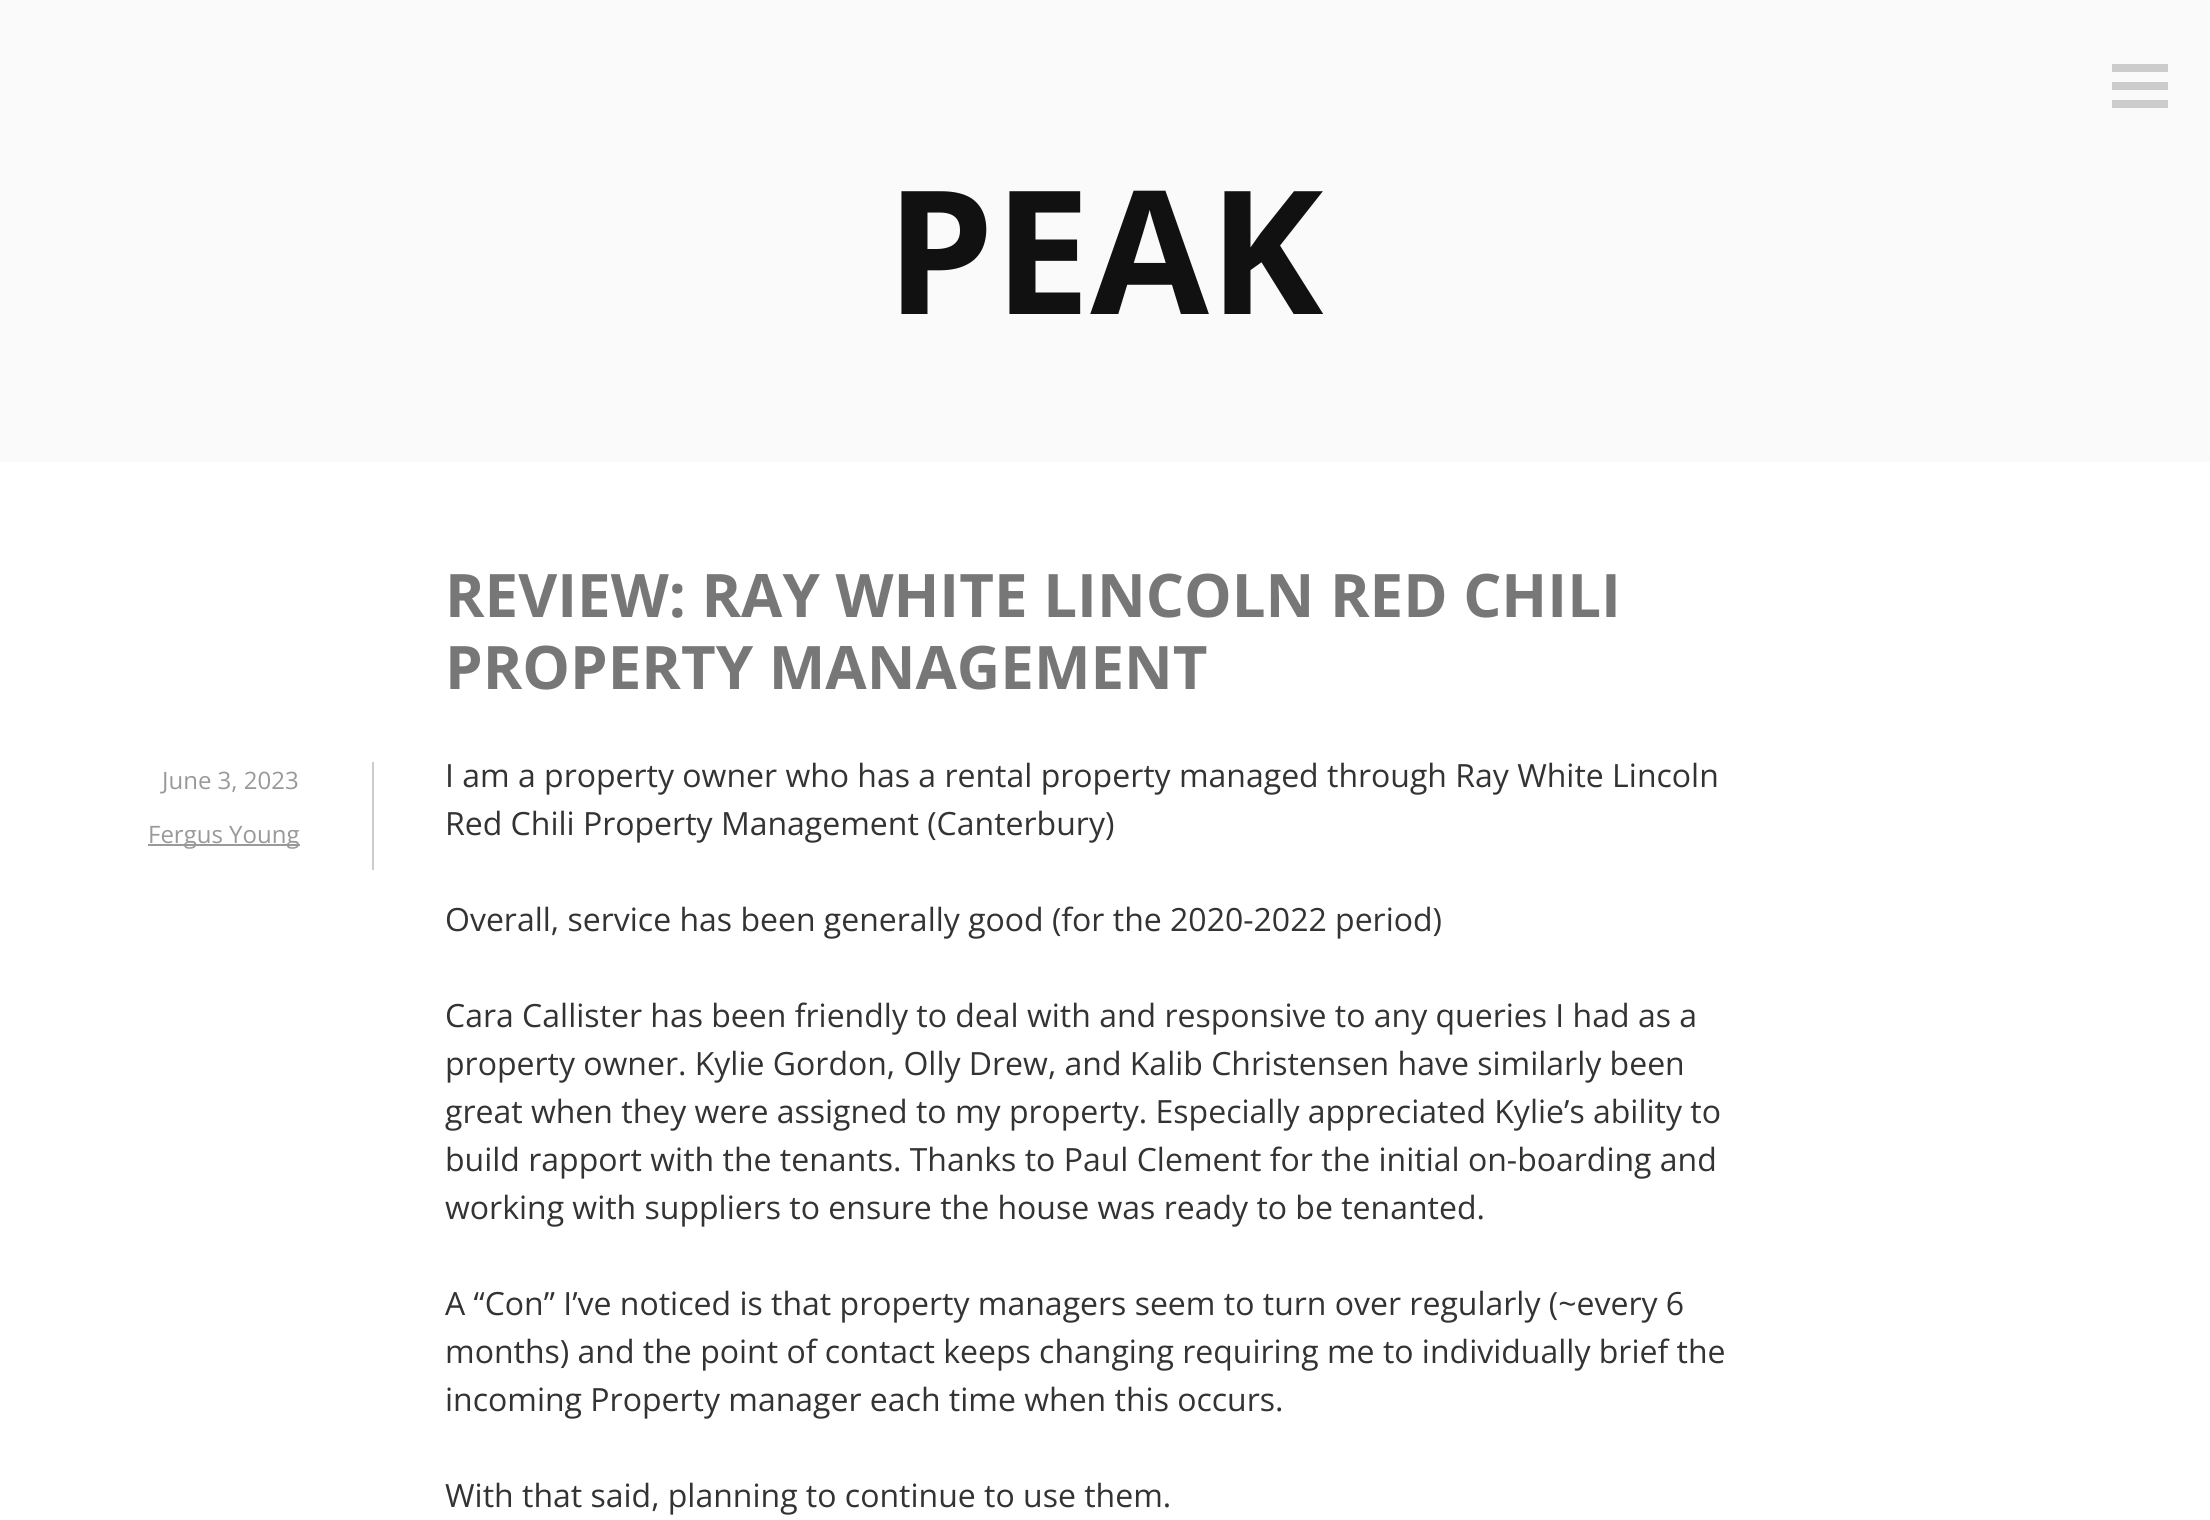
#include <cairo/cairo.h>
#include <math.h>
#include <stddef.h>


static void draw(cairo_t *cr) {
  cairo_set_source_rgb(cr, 1, 1, 1);
  cairo_paint(cr);
  cairo_set_source_rgb(cr, 250 / 255.0, 250 / 255.0, 250 / 255.0);
  cairo_rectangle(cr, 0, 0, 2210, 462);
  cairo_fill(cr);
  cairo_set_source_rgb(cr, 204 / 255.0, 204 / 255.0, 204 / 255.0);
  cairo_rectangle(cr, 2112, 64, 56, 8);
  cairo_fill(cr);
  cairo_rectangle(cr, 2112, 82, 56, 8);
  cairo_fill(cr);
  cairo_rectangle(cr, 2112, 100, 56, 8);
  cairo_fill(cr);
  cairo_rectangle(cr, 372, 762, 2, 108);
  cairo_fill(cr);
  cairo_set_source_rgb(cr, 153 / 255.0, 153 / 255.0, 153 / 255.0);
  cairo_rectangle(cr, 148, 844, 152, 2);
  cairo_fill(cr);
  cairo_select_font_face(cr, "Open Sans", CAIRO_FONT_SLANT_NORMAL, CAIRO_FONT_WEIGHT_BOLD);
  cairo_set_font_size(cr, 172);
  cairo_set_source_rgb(cr, 17 / 255.0, 17 / 255.0, 17 / 255.0);
  cairo_move_to(cr, 886, 314);
  cairo_show_text(cr, "PEAK");
  cairo_set_font_size(cr, 60);
  cairo_set_source_rgb(cr, 119 / 255.0, 119 / 255.0, 119 / 255.0);
  cairo_move_to(cr, 445, 617);
  cairo_show_text(cr, "REVIEW: RAY WHITE LINCOLN RED CHILI");
  cairo_move_to(cr, 445, 689);
  cairo_show_text(cr, "PROPERTY MANAGEMENT");
  cairo_select_font_face(cr, "Open Sans", CAIRO_FONT_SLANT_NORMAL, CAIRO_FONT_WEIGHT_NORMAL);
  cairo_set_font_size(cr, 24);
  cairo_set_source_rgb(cr, 153 / 255.0, 153 / 255.0, 153 / 255.0);
  cairo_move_to(cr, 162, 789);
  cairo_show_text(cr, "June 3, 2023");
  cairo_move_to(cr, 148, 843);
  cairo_show_text(cr, "Fergus Young");
  cairo_set_font_size(cr, 32);
  cairo_set_source_rgb(cr, 51 / 255.0, 51 / 255.0, 51 / 255.0);
  cairo_move_to(cr, 445, 787);
  cairo_show_text(cr, "I am a property owner who has a rental property managed through Ray White Lincoln");
  cairo_move_to(cr, 445, 835);
  cairo_show_text(cr, "Red Chili Property Management (Canterbury)");
  cairo_move_to(cr, 445, 931);
  cairo_show_text(cr, "Overall, service has been generally good (for the 2020-2022 period)");
  cairo_move_to(cr, 445, 1027);
  cairo_show_text(cr, "Cara Callister has been friendly to deal with and responsive to any queries I had as a");
  cairo_move_to(cr, 445, 1075);
  cairo_show_text(cr, "property owner. Kylie Gordon, Olly Drew, and Kalib Christensen have similarly been");
  cairo_move_to(cr, 445, 1123);
  cairo_show_text(cr, "great when they were assigned to my property. Especially appreciated Kylie’s ability to");
  cairo_move_to(cr, 445, 1171);
  cairo_show_text(cr, "build rapport with the tenants. Thanks to Paul Clement for the initial on-boarding and");
  cairo_move_to(cr, 445, 1219);
  cairo_show_text(cr, "working with suppliers to ensure the house was ready to be tenanted.");
  cairo_move_to(cr, 445, 1315);
  cairo_show_text(cr, "A “Con” I’ve noticed is that property managers seem to turn over regularly (~every 6");
  cairo_move_to(cr, 445, 1363);
  cairo_show_text(cr, "months) and the point of contact keeps changing requiring me to individually brief the");
  cairo_move_to(cr, 445, 1411);
  cairo_show_text(cr, "incoming Property manager each time when this occurs.");
  cairo_move_to(cr, 445, 1507);
  cairo_show_text(cr, "With that said, planning to continue to use them.");
}

int main(void) {
  cairo_surface_t *surface = cairo_image_surface_create(CAIRO_FORMAT_RGB24, 2210, 1520);
  cairo_t *cr = cairo_create(surface);
  cairo_font_options_t *options = cairo_font_options_create();
  cairo_font_options_set_hint_metrics(options, CAIRO_HINT_METRICS_OFF);
  cairo_font_options_set_hint_style(options, CAIRO_HINT_STYLE_NONE);
  cairo_set_font_options(cr, options);
  cairo_set_miter_limit(cr, 4);
  draw(cr);
  cairo_surface_write_to_png(surface, "out.png");
  cairo_font_options_destroy(options);
  cairo_destroy(cr);
  cairo_surface_destroy(surface);
  return 0;
}
